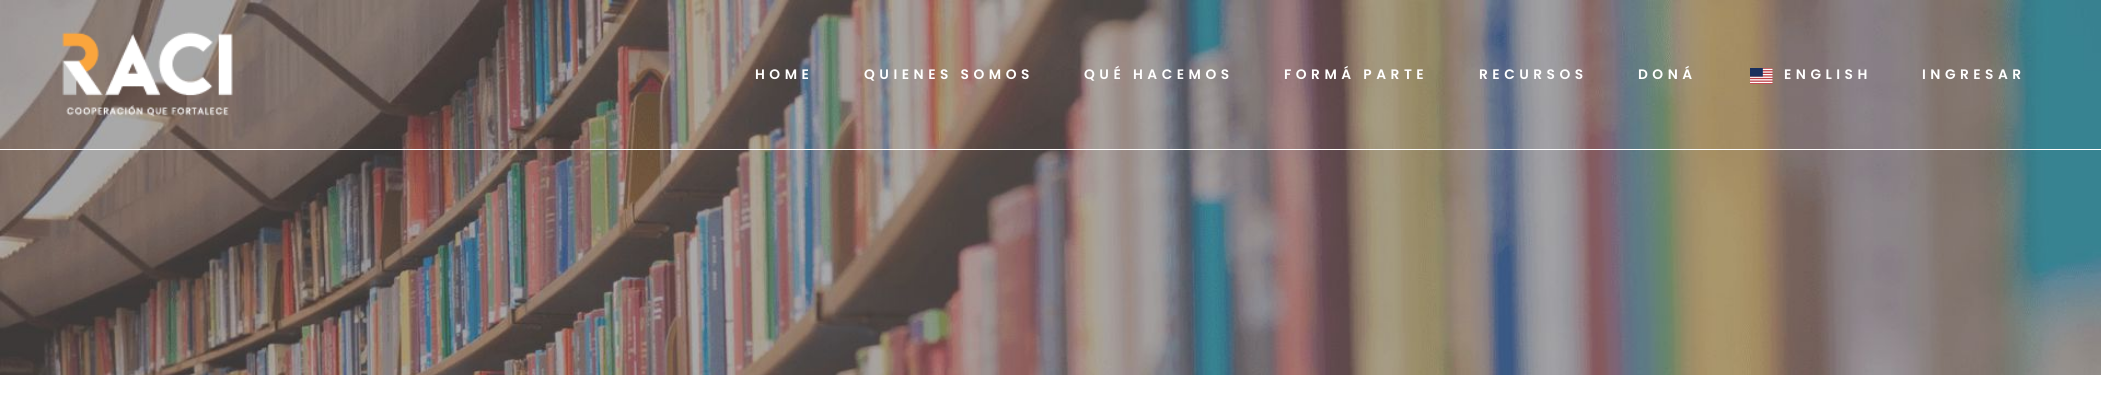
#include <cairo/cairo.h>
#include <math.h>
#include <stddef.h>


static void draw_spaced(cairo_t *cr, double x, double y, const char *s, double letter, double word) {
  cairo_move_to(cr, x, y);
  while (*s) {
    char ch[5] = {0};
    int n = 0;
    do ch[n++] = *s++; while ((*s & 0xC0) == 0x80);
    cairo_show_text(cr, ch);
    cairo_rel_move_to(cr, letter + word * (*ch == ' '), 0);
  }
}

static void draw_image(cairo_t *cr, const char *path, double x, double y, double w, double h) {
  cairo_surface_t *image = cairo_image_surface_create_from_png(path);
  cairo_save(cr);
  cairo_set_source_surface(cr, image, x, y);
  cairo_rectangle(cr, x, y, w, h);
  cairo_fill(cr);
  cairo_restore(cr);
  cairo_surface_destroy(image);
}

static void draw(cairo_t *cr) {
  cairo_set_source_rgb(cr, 1, 1, 1);
  cairo_paint(cr);
  draw_image(cr, "images/1.png", 0, 0, 2101, 375);
  cairo_set_source_rgb(cr, 1, 1, 1);
  cairo_rectangle(cr, 0, 149, 2101, 1);
  cairo_fill(cr);
  draw_image(cr, "images/2.png", 62, 32, 171, 85);
  draw_image(cr, "images/3.png", 1750, 68, 23, 16);
  cairo_select_font_face(cr, "Poppins SemiBold", CAIRO_FONT_SLANT_NORMAL, CAIRO_FONT_WEIGHT_NORMAL);
  cairo_set_font_size(cr, 13.75);
  draw_spaced(cr, 755, 79, "HOME", 4.5, 0);
  draw_spaced(cr, 864, 79, "QUIENES SOMOS", 4.5, 0);
  draw_spaced(cr, 1084, 79, "QUÉ HACEMOS", 4.5, 0);
  draw_spaced(cr, 1284, 79, "FORMÁ PARTE", 4.5, 0);
  draw_spaced(cr, 1479, 79, "RECURSOS", 4.5, 0);
  draw_spaced(cr, 1638, 79, "DONÁ", 4.5, 0);
  draw_spaced(cr, 1784, 79, "ENGLISH", 4.5, 0);
  draw_spaced(cr, 1922, 79, "INGRESAR", 4.5, 0);
}

int main(void) {
  cairo_surface_t *surface = cairo_image_surface_create(CAIRO_FORMAT_RGB24, 2101, 397);
  cairo_t *cr = cairo_create(surface);
  cairo_font_options_t *options = cairo_font_options_create();
  cairo_font_options_set_hint_metrics(options, CAIRO_HINT_METRICS_OFF);
  cairo_font_options_set_hint_style(options, CAIRO_HINT_STYLE_NONE);
  cairo_set_font_options(cr, options);
  cairo_set_miter_limit(cr, 4);
  draw(cr);
  cairo_surface_write_to_png(surface, "out.png");
  cairo_font_options_destroy(options);
  cairo_destroy(cr);
  cairo_surface_destroy(surface);
  return 0;
}
